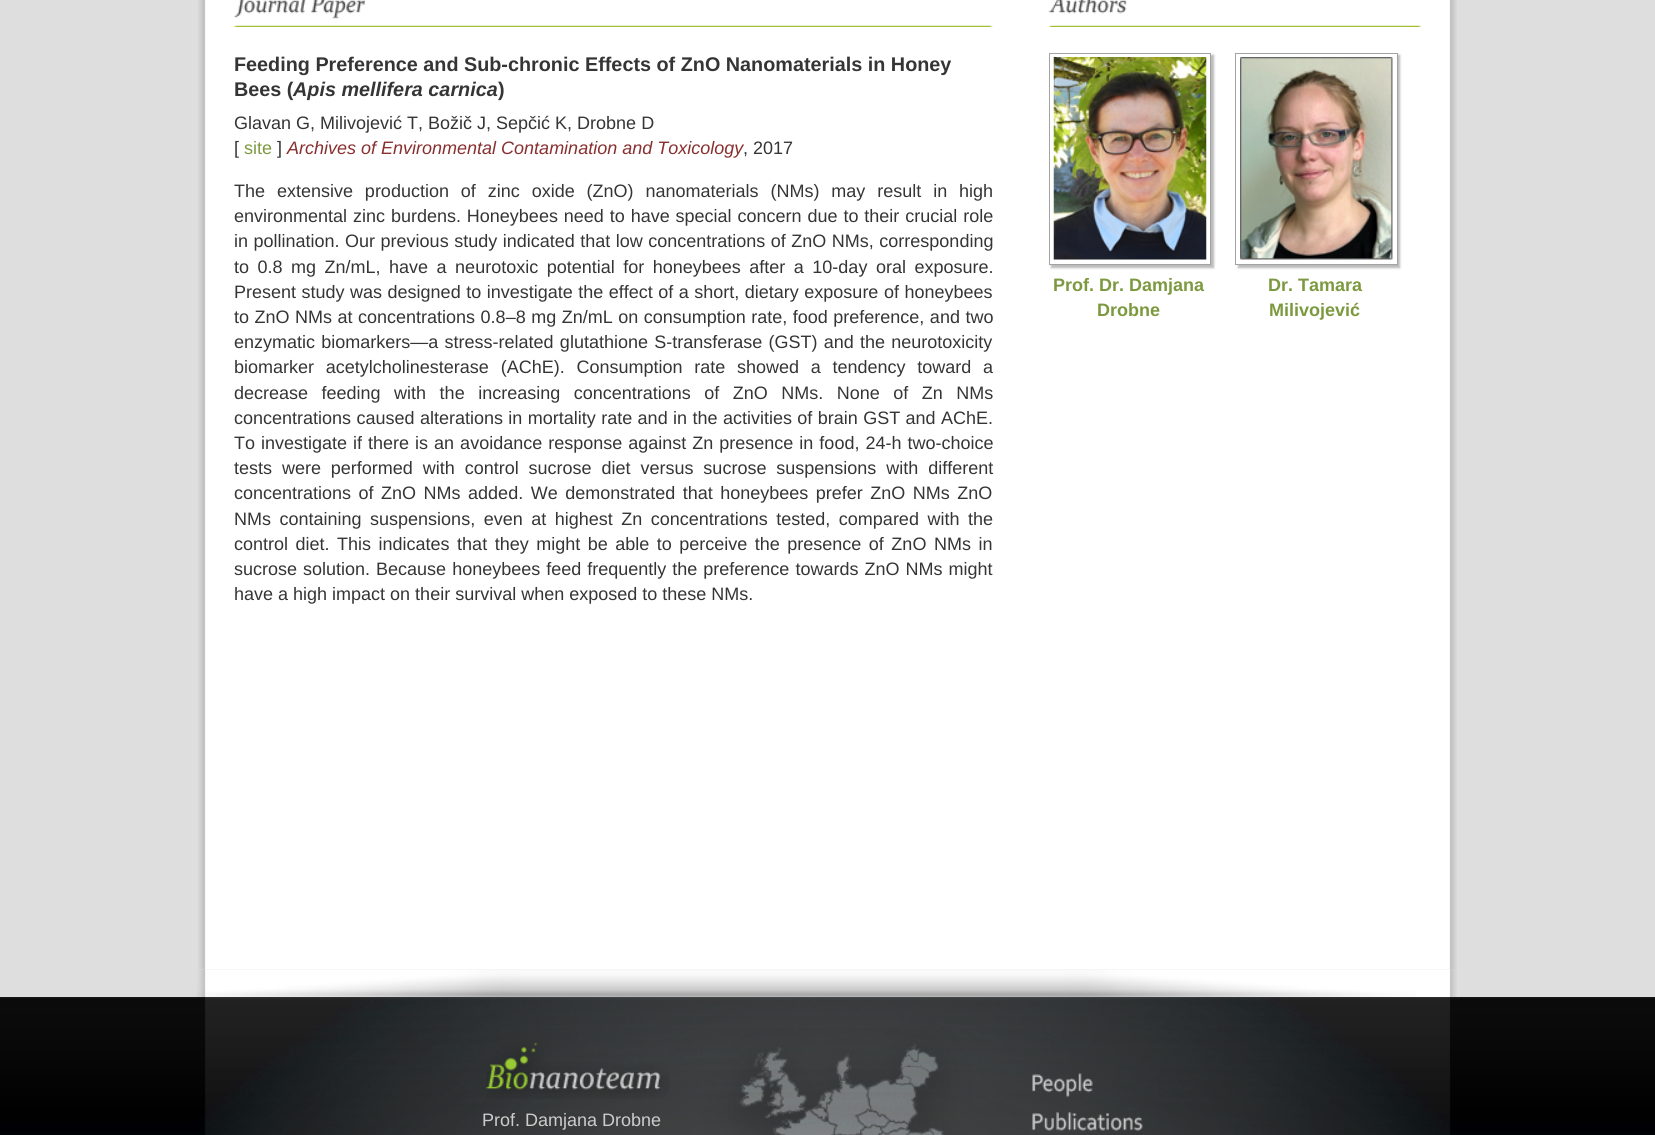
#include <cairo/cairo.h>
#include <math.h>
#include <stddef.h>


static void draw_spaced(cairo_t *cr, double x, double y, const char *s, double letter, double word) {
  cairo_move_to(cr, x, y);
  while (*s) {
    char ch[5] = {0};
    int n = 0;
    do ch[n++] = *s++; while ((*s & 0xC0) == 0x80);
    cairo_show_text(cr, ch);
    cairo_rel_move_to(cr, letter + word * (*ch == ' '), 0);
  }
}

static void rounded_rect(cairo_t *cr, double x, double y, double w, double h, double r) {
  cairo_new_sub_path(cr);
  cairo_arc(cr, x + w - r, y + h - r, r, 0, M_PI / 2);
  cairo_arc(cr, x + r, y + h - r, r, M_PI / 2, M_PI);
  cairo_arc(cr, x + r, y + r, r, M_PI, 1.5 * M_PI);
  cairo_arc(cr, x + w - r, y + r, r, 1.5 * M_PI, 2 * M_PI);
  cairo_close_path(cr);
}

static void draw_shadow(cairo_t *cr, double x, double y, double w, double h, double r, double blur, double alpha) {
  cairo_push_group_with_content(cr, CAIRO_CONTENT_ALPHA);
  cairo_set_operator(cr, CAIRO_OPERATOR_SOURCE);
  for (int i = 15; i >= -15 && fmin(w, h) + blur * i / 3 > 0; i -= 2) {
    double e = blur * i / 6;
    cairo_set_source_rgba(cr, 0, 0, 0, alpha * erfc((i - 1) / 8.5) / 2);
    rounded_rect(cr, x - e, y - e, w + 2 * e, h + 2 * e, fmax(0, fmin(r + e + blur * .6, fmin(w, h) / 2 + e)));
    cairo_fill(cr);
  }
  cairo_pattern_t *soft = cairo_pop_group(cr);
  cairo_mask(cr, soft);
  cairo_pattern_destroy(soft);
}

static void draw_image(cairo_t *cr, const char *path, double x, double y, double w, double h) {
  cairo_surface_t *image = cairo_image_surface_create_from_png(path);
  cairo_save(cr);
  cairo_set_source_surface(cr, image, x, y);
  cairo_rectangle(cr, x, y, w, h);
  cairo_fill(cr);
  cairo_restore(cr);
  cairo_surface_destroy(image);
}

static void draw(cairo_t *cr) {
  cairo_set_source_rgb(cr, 222 / 255.0, 222 / 255.0, 222 / 255.0);
  cairo_paint(cr);
  draw_image(cr, "images/1.png", 198, 0, 1259, 970);
  draw_image(cr, "images/2.png", 233, 0, 132, 19);
  draw_image(cr, "images/3.png", 233, 25, 760, 2);
  draw_image(cr, "images/4.png", 1048, 0, 79, 14);
  draw_image(cr, "images/5.png", 1048, 25, 374, 2);
  cairo_save(cr);
  cairo_set_fill_rule(cr, CAIRO_FILL_RULE_EVEN_ODD);
  cairo_new_path(cr);
  cairo_move_to(cr, 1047, 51);
  cairo_line_to(cr, 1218, 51);
  cairo_line_to(cr, 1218, 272);
  cairo_line_to(cr, 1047, 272);
  cairo_close_path(cr);
  cairo_move_to(cr, 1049, 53);
  cairo_line_to(cr, 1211, 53);
  cairo_line_to(cr, 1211, 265);
  cairo_line_to(cr, 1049, 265);
  cairo_close_path(cr);
  cairo_clip(cr);
  cairo_set_source_rgb(cr, 187 / 255.0, 187 / 255.0, 187 / 255.0);
  draw_shadow(cr, 1051, 55, 163, 213, 0, 1, 1);
  cairo_restore(cr);
  cairo_rectangle(cr, 1049.5, 53.5, 161, 211);
  cairo_set_source_rgb(cr, 163 / 255.0, 163 / 255.0, 163 / 255.0);
  cairo_set_line_width(cr, 1);
  cairo_stroke(cr);
  draw_image(cr, "images/6.png", 1053, 57, 154, 203);
  cairo_save(cr);
  cairo_set_fill_rule(cr, CAIRO_FILL_RULE_EVEN_ODD);
  cairo_new_path(cr);
  cairo_move_to(cr, 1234, 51);
  cairo_line_to(cr, 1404, 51);
  cairo_line_to(cr, 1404, 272);
  cairo_line_to(cr, 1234, 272);
  cairo_close_path(cr);
  cairo_move_to(cr, 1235, 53);
  cairo_line_to(cr, 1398, 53);
  cairo_line_to(cr, 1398, 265);
  cairo_line_to(cr, 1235, 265);
  cairo_close_path(cr);
  cairo_clip(cr);
  cairo_set_source_rgb(cr, 187 / 255.0, 187 / 255.0, 187 / 255.0);
  draw_shadow(cr, 1238, 55, 162, 213, 0, 1, 1);
  cairo_restore(cr);
  cairo_rectangle(cr, 1235.5, 53.5, 162, 211);
  cairo_stroke(cr);
  draw_image(cr, "images/7.png", 1240, 57, 153, 203);
  draw_image(cr, "images/8.png", 196, 969, 1261, 28);
  draw_image(cr, "images/9.png", 0, 997, 1655, 138);
  draw_image(cr, "images/10.png", 200, 997, 790, 138);
  draw_image(cr, "images/11.png", 486, 1042, 184, 57);
  draw_image(cr, "images/12.png", 990, 997, 461, 138);
  draw_image(cr, "images/13.png", 990, 1065, 169, 37);
  draw_image(cr, "images/14.png", 990, 1102, 169, 33);
  cairo_select_font_face(cr, "Liberation Sans", CAIRO_FONT_SLANT_NORMAL, CAIRO_FONT_WEIGHT_BOLD);
  cairo_set_font_size(cr, 19.8);
  cairo_set_source_rgb(cr, 53 / 255.0, 53 / 255.0, 53 / 255.0);
  cairo_move_to(cr, 234, 71);
  cairo_show_text(cr, "Feeding Preference and Sub-chronic Effects of ZnO Nanomaterials in Honey");
  cairo_move_to(cr, 234, 96);
  cairo_show_text(cr, "Bees (");
  cairo_select_font_face(cr, "Liberation Sans", CAIRO_FONT_SLANT_ITALIC, CAIRO_FONT_WEIGHT_BOLD);
  cairo_move_to(cr, 293, 96);
  cairo_show_text(cr, "Apis mellifera carnica");
  cairo_select_font_face(cr, "Liberation Sans", CAIRO_FONT_SLANT_NORMAL, CAIRO_FONT_WEIGHT_BOLD);
  cairo_move_to(cr, 498, 96);
  cairo_show_text(cr, ")");
  cairo_select_font_face(cr, "Liberation Sans", CAIRO_FONT_SLANT_NORMAL, CAIRO_FONT_WEIGHT_NORMAL);
  cairo_set_font_size(cr, 18);
  cairo_move_to(cr, 234, 129);
  cairo_show_text(cr, "Glavan G, Milivojević T, Božič J, Sepčić K, Drobne D");
  cairo_move_to(cr, 234, 154);
  cairo_show_text(cr, "[");
  cairo_set_source_rgb(cr, 124 / 255.0, 153 / 255.0, 63 / 255.0);
  cairo_move_to(cr, 244, 154);
  cairo_show_text(cr, "site");
  cairo_set_source_rgb(cr, 53 / 255.0, 53 / 255.0, 53 / 255.0);
  cairo_move_to(cr, 277, 154);
  cairo_show_text(cr, "]");
  cairo_select_font_face(cr, "Liberation Sans", CAIRO_FONT_SLANT_ITALIC, CAIRO_FONT_WEIGHT_NORMAL);
  cairo_set_source_rgb(cr, 137 / 255.0, 47 / 255.0, 47 / 255.0);
  cairo_move_to(cr, 287, 154);
  cairo_show_text(cr, "Archives of Environmental Contamination and Toxicology");
  cairo_select_font_face(cr, "Liberation Sans", CAIRO_FONT_SLANT_NORMAL, CAIRO_FONT_WEIGHT_NORMAL);
  cairo_set_source_rgb(cr, 53 / 255.0, 53 / 255.0, 53 / 255.0);
  cairo_move_to(cr, 743, 154);
  cairo_show_text(cr, ", 2017");
  draw_spaced(cr, 234, 197, "The extensive production of zinc oxide (ZnO) nanomaterials (NMs) may result in high", 0, 6.9);
  draw_spaced(cr, 234, 222, "environmental zinc burdens. Honeybees need to have special concern due to their crucial role", 0, 0.9);
  draw_spaced(cr, 234, 247, "in pollination. Our previous study indicated that low concentrations of ZnO NMs, corresponding", 0, 0.5);
  draw_spaced(cr, 234, 273, "to 0.8 mg Zn/mL, have a neurotoxic potential for honeybees after a 10-day oral exposure.", 0, 3.5);
  draw_spaced(cr, 234, 298, "Present study was designed to investigate the effect of a short, dietary exposure of honeybees", 0, 0.5);
  draw_spaced(cr, 234, 323, "to ZnO NMs at concentrations 0.8–8 mg Zn/mL on consumption rate, food preference, and two", 0, 0.5);
  draw_spaced(cr, 234, 348, "enzymatic biomarkers—a stress-related glutathione S-transferase (GST) and the neurotoxicity", 0, 1.25);
  draw_spaced(cr, 234, 373, "biomarker acetylcholinesterase (AChE). Consumption rate showed a tendency toward a", 0, 6.75);
  draw_spaced(cr, 234, 399, "decrease feeding with the increasing concentrations of ZnO NMs. None of Zn NMs", 0, 8.5);
  draw_spaced(cr, 234, 424, "concentrations caused alterations in mortality rate and in the activities of brain GST and AChE.", 0, 0.4);
  draw_spaced(cr, 234, 449, "To investigate if there is an avoidance response against Zn presence in food, 24-h two-choice", 0, 1);
  draw_spaced(cr, 234, 474, "tests were performed with control sucrose diet versus sucrose suspensions with different", 0, 4.9);
  draw_spaced(cr, 234, 499, "concentrations of ZnO NMs added. We demonstrated that honeybees prefer ZnO NMs ZnO", 0, 2.5);
  draw_spaced(cr, 234, 525, "NMs containing suspensions, even at highest Zn concentrations tested, compared with the", 0, 3.5);
  draw_spaced(cr, 234, 550, "control diet. This indicates that they might be able to perceive the presence of ZnO NMs in", 0, 2.5);
  draw_spaced(cr, 234, 575, "sucrose solution. Because honeybees feed frequently the preference towards ZnO NMs might", 0, 1);
  cairo_move_to(cr, 234, 600);
  cairo_show_text(cr, "have a high impact on their survival when exposed to these NMs.");
  cairo_select_font_face(cr, "Liberation Sans", CAIRO_FONT_SLANT_NORMAL, CAIRO_FONT_WEIGHT_BOLD);
  cairo_set_source_rgb(cr, 124 / 255.0, 153 / 255.0, 63 / 255.0);
  cairo_move_to(cr, 1053, 291);
  cairo_show_text(cr, "Prof. Dr. Damjana");
  cairo_move_to(cr, 1097, 316);
  cairo_show_text(cr, "Drobne");
  cairo_move_to(cr, 1268, 291);
  cairo_show_text(cr, "Dr. Tamara");
  cairo_move_to(cr, 1269, 316);
  cairo_show_text(cr, "Milivojević");
  cairo_select_font_face(cr, "Liberation Sans", CAIRO_FONT_SLANT_NORMAL, CAIRO_FONT_WEIGHT_NORMAL);
  cairo_set_source_rgb(cr, 204 / 255.0, 204 / 255.0, 204 / 255.0);
  cairo_move_to(cr, 482, 1126);
  cairo_show_text(cr, "Prof. Damjana Drobne");
}

int main(void) {
  cairo_surface_t *surface = cairo_image_surface_create(CAIRO_FORMAT_RGB24, 1655, 1135);
  cairo_t *cr = cairo_create(surface);
  cairo_font_options_t *options = cairo_font_options_create();
  cairo_font_options_set_hint_metrics(options, CAIRO_HINT_METRICS_OFF);
  cairo_font_options_set_hint_style(options, CAIRO_HINT_STYLE_NONE);
  cairo_set_font_options(cr, options);
  cairo_set_miter_limit(cr, 4);
  draw(cr);
  cairo_surface_write_to_png(surface, "out.png");
  cairo_font_options_destroy(options);
  cairo_destroy(cr);
  cairo_surface_destroy(surface);
  return 0;
}
